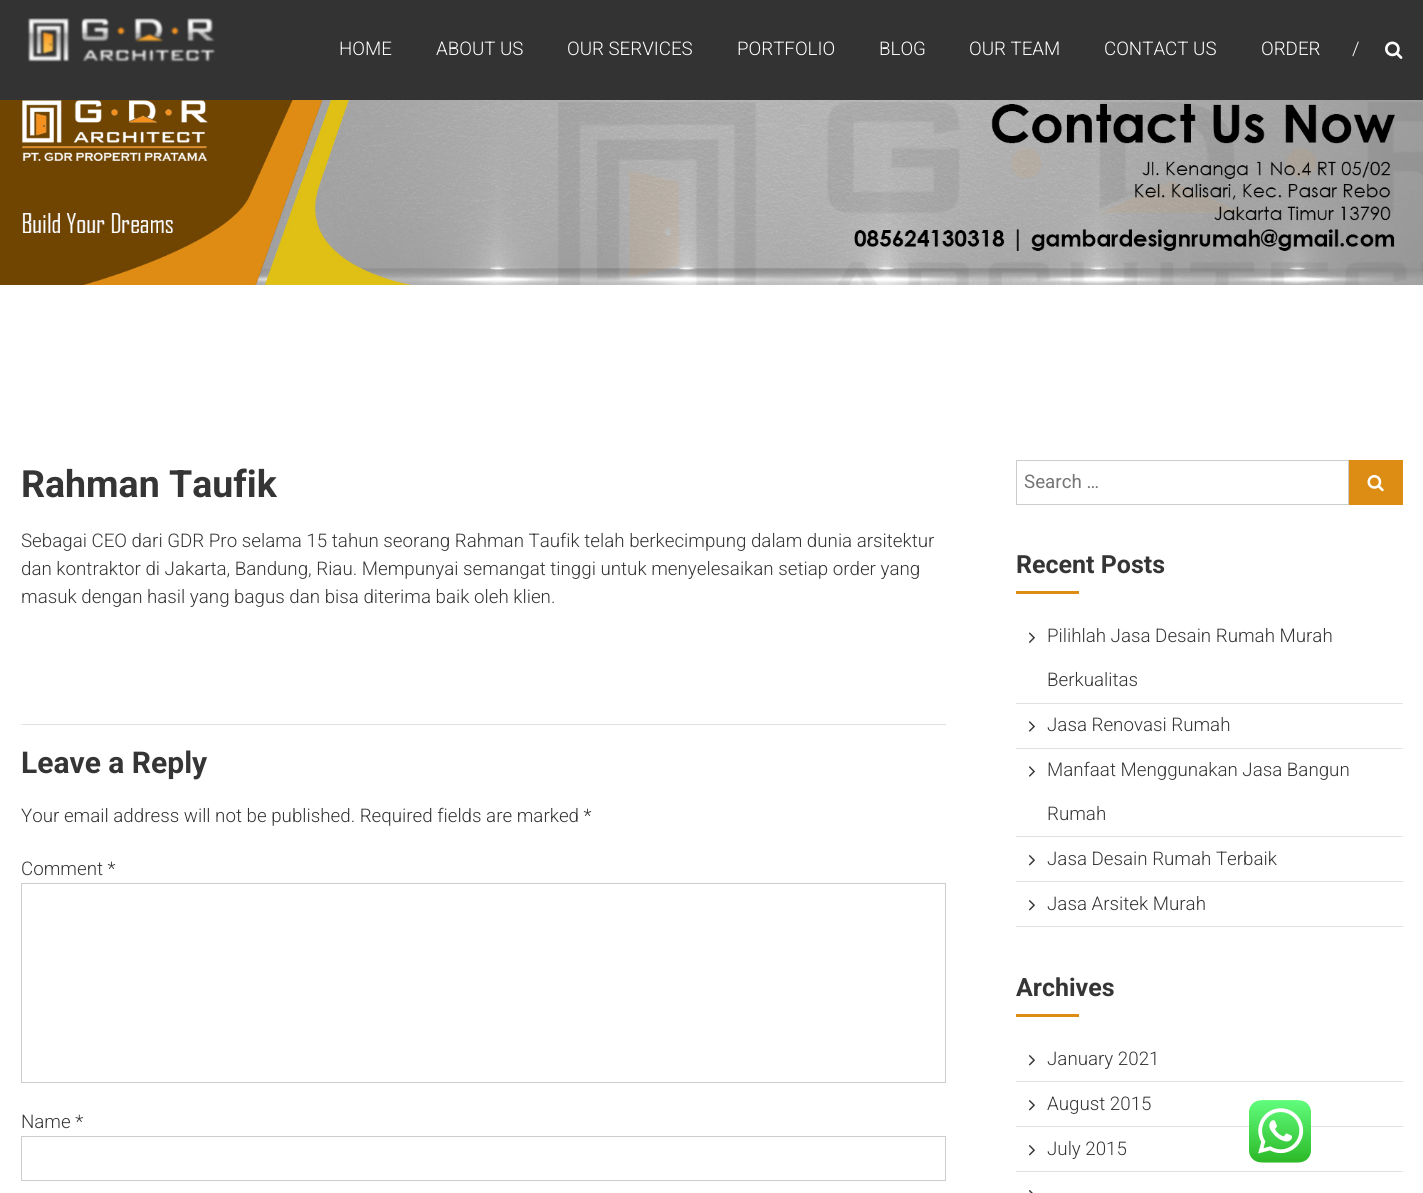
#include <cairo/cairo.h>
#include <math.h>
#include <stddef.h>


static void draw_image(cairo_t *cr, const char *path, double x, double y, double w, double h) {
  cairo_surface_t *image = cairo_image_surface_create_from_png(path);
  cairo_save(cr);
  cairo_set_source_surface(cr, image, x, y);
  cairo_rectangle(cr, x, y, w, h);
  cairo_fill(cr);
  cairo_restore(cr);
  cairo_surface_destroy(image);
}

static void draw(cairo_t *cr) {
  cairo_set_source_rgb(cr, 1, 1, 1);
  cairo_paint(cr);
  cairo_set_source_rgb(cr, 51 / 255.0, 51 / 255.0, 51 / 255.0);
  cairo_rectangle(cr, 0, 0, 1423, 100);
  cairo_fill(cr);
  draw_image(cr, "images/1.png", 27, 18, 189, 44);
  draw_image(cr, "images/2.png", 1385, 41, 18, 18);
  draw_image(cr, "images/3.png", 0, 100, 1423, 185);
  cairo_set_source_rgb(cr, 225 / 255.0, 225 / 255.0, 225 / 255.0);
  cairo_rectangle(cr, 21, 724, 925, 1);
  cairo_fill(cr);
  cairo_rectangle(cr, 21.5, 883.5, 924, 199);
  cairo_set_source_rgb(cr, 204 / 255.0, 204 / 255.0, 204 / 255.0);
  cairo_set_line_width(cr, 1);
  cairo_stroke(cr);
  cairo_rectangle(cr, 21.5, 1136.5, 924, 44);
  cairo_stroke(cr);
  cairo_rectangle(cr, 1016.5, 460.5, 332, 44);
  cairo_stroke(cr);
  cairo_set_source_rgb(cr, 221 / 255.0, 141 / 255.0, 19 / 255.0);
  cairo_rectangle(cr, 1349, 460, 54, 45);
  cairo_fill(cr);
  draw_image(cr, "images/4.png", 1367, 475, 17, 17);
  cairo_rectangle(cr, 1016, 591, 63, 3);
  cairo_fill(cr);
  cairo_set_source_rgb(cr, 225 / 255.0, 225 / 255.0, 225 / 255.0);
  cairo_rectangle(cr, 1016, 703, 387, 1);
  cairo_fill(cr);
  draw_image(cr, "images/5.png", 1028, 632, 7, 11);
  cairo_rectangle(cr, 1016, 748, 387, 1);
  cairo_fill(cr);
  draw_image(cr, "images/6.png", 1028, 721, 7, 11);
  cairo_rectangle(cr, 1016, 836, 387, 1);
  cairo_fill(cr);
  draw_image(cr, "images/6.png", 1028, 766, 7, 11);
  cairo_rectangle(cr, 1016, 881, 387, 1);
  cairo_fill(cr);
  draw_image(cr, "images/7.png", 1028, 855, 7, 11);
  cairo_rectangle(cr, 1016, 926, 387, 1);
  cairo_fill(cr);
  draw_image(cr, "images/7.png", 1028, 900, 7, 11);
  cairo_set_source_rgb(cr, 221 / 255.0, 141 / 255.0, 19 / 255.0);
  cairo_rectangle(cr, 1016, 1014, 63, 3);
  cairo_fill(cr);
  cairo_set_source_rgb(cr, 225 / 255.0, 225 / 255.0, 225 / 255.0);
  cairo_rectangle(cr, 1016, 1081, 387, 1);
  cairo_fill(cr);
  draw_image(cr, "images/7.png", 1028, 1055, 7, 11);
  cairo_rectangle(cr, 1016, 1126, 387, 1);
  cairo_fill(cr);
  draw_image(cr, "images/7.png", 1028, 1100, 7, 11);
  cairo_rectangle(cr, 1016, 1171, 387, 1);
  cairo_fill(cr);
  draw_image(cr, "images/7.png", 1028, 1145, 7, 11);
  draw_image(cr, "images/8.png", 1028, 1190, 5, 3);
  draw_image(cr, "images/9.png", 1249, 1100, 62, 63);
  cairo_select_font_face(cr, "Roboto Light", CAIRO_FONT_SLANT_NORMAL, CAIRO_FONT_WEIGHT_NORMAL);
  cairo_set_font_size(cr, 18.75);
  cairo_set_source_rgb(cr, 1, 1, 1);
  cairo_move_to(cr, 339, 55);
  cairo_show_text(cr, "HOME");
  cairo_move_to(cr, 436, 55);
  cairo_show_text(cr, "ABOUT US");
  cairo_move_to(cr, 567, 55);
  cairo_show_text(cr, "OUR SERVICES");
  cairo_move_to(cr, 737, 55);
  cairo_show_text(cr, "PORTFOLIO");
  cairo_move_to(cr, 879, 55);
  cairo_show_text(cr, "BLOG");
  cairo_move_to(cr, 969, 55);
  cairo_show_text(cr, "OUR TEAM");
  cairo_move_to(cr, 1104, 55);
  cairo_show_text(cr, "CONTACT US");
  cairo_move_to(cr, 1261, 55);
  cairo_show_text(cr, "ORDER");
  cairo_move_to(cr, 1352, 55);
  cairo_show_text(cr, "/");
  cairo_select_font_face(cr, "Roboto", CAIRO_FONT_SLANT_NORMAL, CAIRO_FONT_WEIGHT_BOLD);
  cairo_set_font_size(cr, 37.5);
  cairo_set_source_rgb(cr, 53 / 255.0, 53 / 255.0, 53 / 255.0);
  cairo_move_to(cr, 21, 497);
  cairo_show_text(cr, "Rahman Taufik");
  cairo_select_font_face(cr, "Roboto Light", CAIRO_FONT_SLANT_NORMAL, CAIRO_FONT_WEIGHT_NORMAL);
  cairo_set_font_size(cr, 18.75);
  cairo_move_to(cr, 21, 547);
  cairo_show_text(cr, "Sebagai CEO dari GDR Pro selama 15 tahun seorang Rahman Taufik telah berkecimpung dalam dunia arsitektur");
  cairo_move_to(cr, 21, 575);
  cairo_show_text(cr, "dan kontraktor di Jakarta, Bandung, Riau. Mempunyai semangat tinggi untuk menyelesaikan setiap order yang");
  cairo_move_to(cr, 21, 603);
  cairo_show_text(cr, "masuk dengan hasil yang bagus dan bisa diterima baik oleh klien.");
  cairo_select_font_face(cr, "Roboto", CAIRO_FONT_SLANT_NORMAL, CAIRO_FONT_WEIGHT_BOLD);
  cairo_set_font_size(cr, 30);
  cairo_move_to(cr, 21, 773);
  cairo_show_text(cr, "Leave a Reply");
  cairo_select_font_face(cr, "Roboto Light", CAIRO_FONT_SLANT_NORMAL, CAIRO_FONT_WEIGHT_NORMAL);
  cairo_set_font_size(cr, 18.75);
  cairo_move_to(cr, 21, 822);
  cairo_show_text(cr, "Your email address will not be published. Required fields are marked *");
  cairo_move_to(cr, 21, 875);
  cairo_show_text(cr, "Comment *");
  cairo_move_to(cr, 21, 1128);
  cairo_show_text(cr, "Name *");
  cairo_select_font_face(cr, "Roboto", CAIRO_FONT_SLANT_NORMAL, CAIRO_FONT_WEIGHT_NORMAL);
  cairo_set_source_rgb(cr, 117 / 255.0, 117 / 255.0, 117 / 255.0);
  cairo_move_to(cr, 1024, 488);
  cairo_show_text(cr, "Search …");
  cairo_select_font_face(cr, "Roboto", CAIRO_FONT_SLANT_NORMAL, CAIRO_FONT_WEIGHT_BOLD);
  cairo_set_font_size(cr, 25);
  cairo_set_source_rgb(cr, 53 / 255.0, 53 / 255.0, 53 / 255.0);
  cairo_move_to(cr, 1016, 573);
  cairo_show_text(cr, "Recent Posts");
  cairo_select_font_face(cr, "Roboto Light", CAIRO_FONT_SLANT_NORMAL, CAIRO_FONT_WEIGHT_NORMAL);
  cairo_set_font_size(cr, 18.75);
  cairo_move_to(cr, 1047, 642);
  cairo_show_text(cr, "Pilihlah Jasa Desain Rumah Murah");
  cairo_move_to(cr, 1047, 686);
  cairo_show_text(cr, "Berkualitas");
  cairo_move_to(cr, 1047, 731);
  cairo_show_text(cr, "Jasa Renovasi Rumah");
  cairo_move_to(cr, 1047, 776);
  cairo_show_text(cr, "Manfaat Menggunakan Jasa Bangun");
  cairo_move_to(cr, 1047, 820);
  cairo_show_text(cr, "Rumah");
  cairo_move_to(cr, 1047, 865);
  cairo_show_text(cr, "Jasa Desain Rumah Terbaik");
  cairo_move_to(cr, 1047, 910);
  cairo_show_text(cr, "Jasa Arsitek Murah");
  cairo_select_font_face(cr, "Roboto", CAIRO_FONT_SLANT_NORMAL, CAIRO_FONT_WEIGHT_BOLD);
  cairo_set_font_size(cr, 25);
  cairo_move_to(cr, 1016, 996);
  cairo_show_text(cr, "Archives");
  cairo_select_font_face(cr, "Roboto Light", CAIRO_FONT_SLANT_NORMAL, CAIRO_FONT_WEIGHT_NORMAL);
  cairo_set_font_size(cr, 18.75);
  cairo_move_to(cr, 1047, 1065);
  cairo_show_text(cr, "January 2021");
  cairo_move_to(cr, 1047, 1110);
  cairo_show_text(cr, "August 2015");
  cairo_move_to(cr, 1047, 1155);
  cairo_show_text(cr, "July 2015");
}

int main(void) {
  cairo_surface_t *surface = cairo_image_surface_create(CAIRO_FORMAT_RGB24, 1423, 1193);
  cairo_t *cr = cairo_create(surface);
  cairo_font_options_t *options = cairo_font_options_create();
  cairo_font_options_set_hint_metrics(options, CAIRO_HINT_METRICS_OFF);
  cairo_font_options_set_hint_style(options, CAIRO_HINT_STYLE_NONE);
  cairo_set_font_options(cr, options);
  cairo_set_miter_limit(cr, 4);
  draw(cr);
  cairo_surface_write_to_png(surface, "out.png");
  cairo_font_options_destroy(options);
  cairo_destroy(cr);
  cairo_surface_destroy(surface);
  return 0;
}
